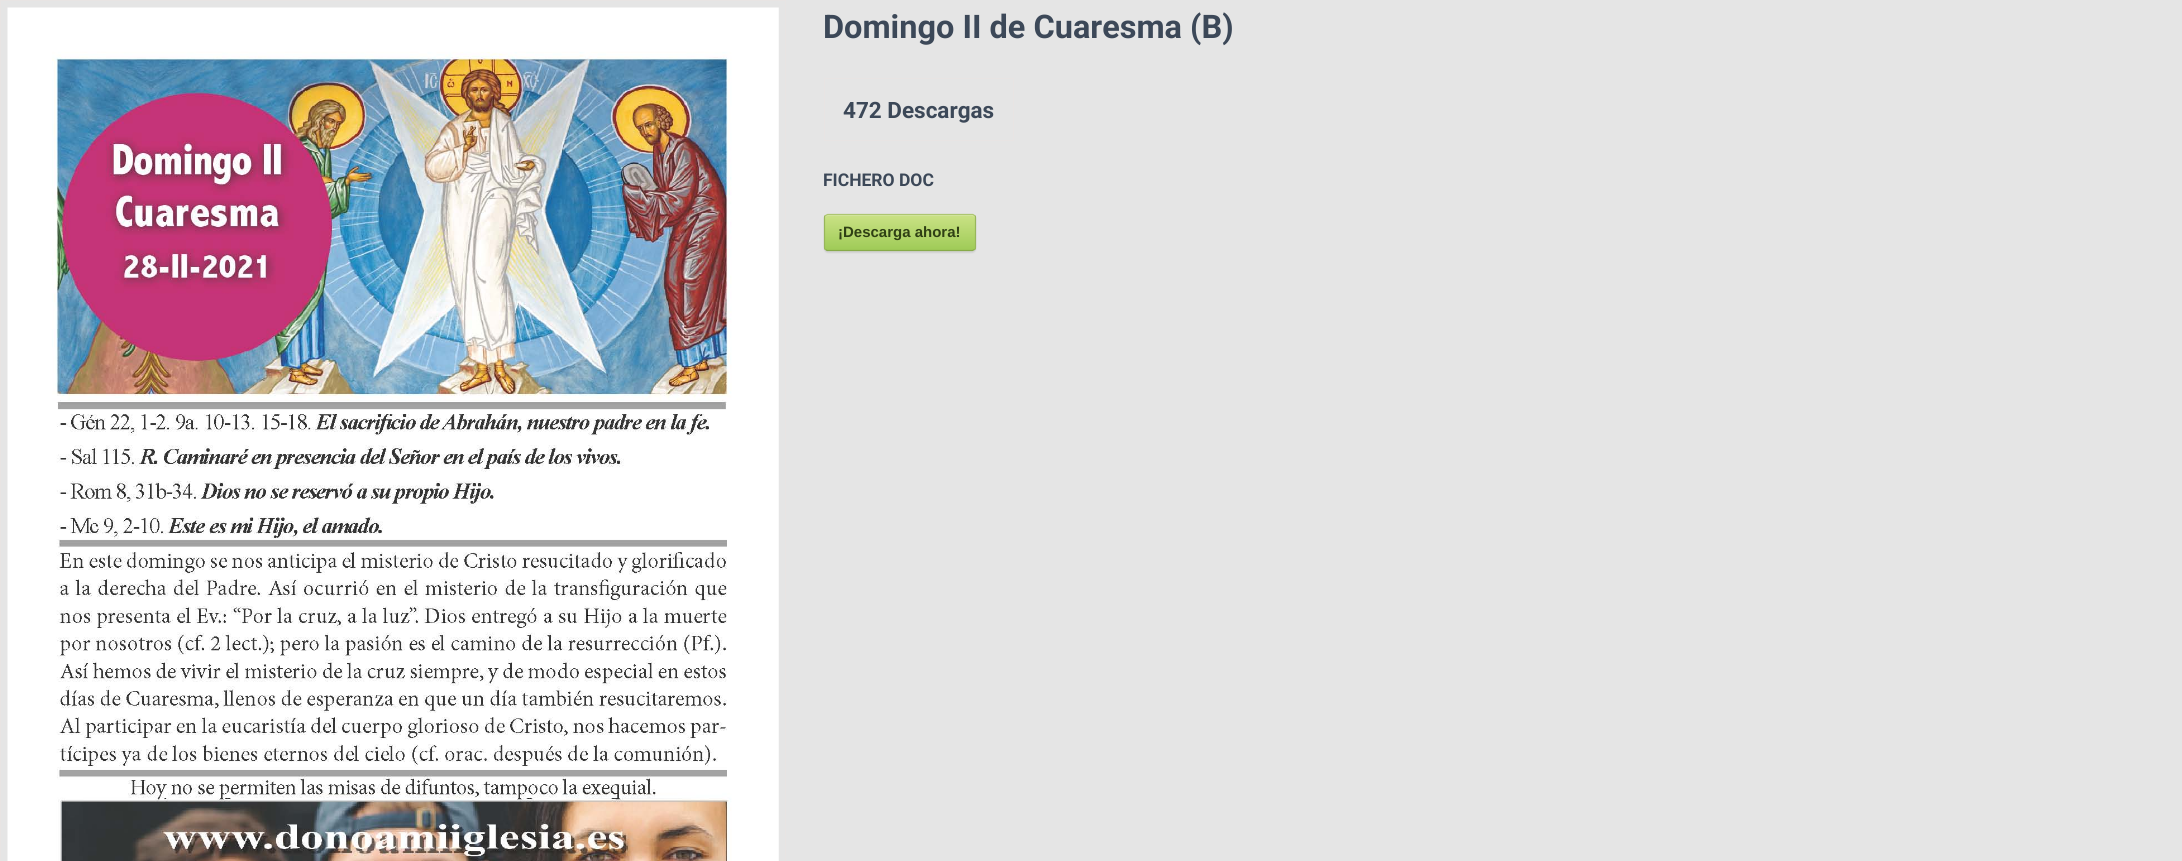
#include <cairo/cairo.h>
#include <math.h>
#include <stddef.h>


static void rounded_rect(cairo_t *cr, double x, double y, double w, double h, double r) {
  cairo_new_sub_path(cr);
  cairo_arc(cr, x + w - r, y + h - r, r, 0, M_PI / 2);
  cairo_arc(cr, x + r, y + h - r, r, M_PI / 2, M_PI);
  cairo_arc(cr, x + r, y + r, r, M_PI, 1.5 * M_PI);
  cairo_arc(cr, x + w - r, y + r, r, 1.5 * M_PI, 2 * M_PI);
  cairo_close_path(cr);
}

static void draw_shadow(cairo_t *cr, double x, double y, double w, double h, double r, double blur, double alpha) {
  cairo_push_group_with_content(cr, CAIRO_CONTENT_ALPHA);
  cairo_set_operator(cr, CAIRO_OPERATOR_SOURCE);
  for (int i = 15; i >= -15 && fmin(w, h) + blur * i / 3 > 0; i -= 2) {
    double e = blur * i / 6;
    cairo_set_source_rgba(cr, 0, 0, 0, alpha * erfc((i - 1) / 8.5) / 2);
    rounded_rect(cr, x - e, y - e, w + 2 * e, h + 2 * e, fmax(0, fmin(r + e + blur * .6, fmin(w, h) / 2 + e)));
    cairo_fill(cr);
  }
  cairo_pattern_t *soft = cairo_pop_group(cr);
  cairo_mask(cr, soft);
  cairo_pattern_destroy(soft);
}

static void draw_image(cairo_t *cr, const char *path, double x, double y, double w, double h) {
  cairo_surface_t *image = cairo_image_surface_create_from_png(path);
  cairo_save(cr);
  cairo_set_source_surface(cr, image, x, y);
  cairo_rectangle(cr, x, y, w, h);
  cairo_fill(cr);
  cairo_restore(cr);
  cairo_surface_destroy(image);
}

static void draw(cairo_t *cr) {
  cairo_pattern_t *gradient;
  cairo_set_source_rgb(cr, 229 / 255.0, 229 / 255.0, 229 / 255.0);
  cairo_paint(cr);
  cairo_rectangle(cr, 0.5, 0.5, 785, 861);
  cairo_set_source_rgb(cr, 232 / 255.0, 228 / 255.0, 227 / 255.0);
  cairo_set_line_width(cr, 1);
  cairo_stroke(cr);
  draw_image(cr, "images/1.png", 7, 7, 772, 854);
  cairo_rectangle(cr, 824.5, 78.5, 189, 62);
  cairo_stroke(cr);
  cairo_set_source_rgb(cr, 211 / 255.0, 211 / 255.0, 211 / 255.0);
  draw_shadow(cr, 824, 215, 152, 38, 4, 0.5, 1);
  cairo_save(cr);
  rounded_rect(cr, 824, 214, 152, 37, 4);
  cairo_clip(cr);
  gradient = cairo_pattern_create_linear(825, 215, 825, 250);
  cairo_pattern_add_color_stop_rgba(gradient, 0, 202 / 255.0, 226 / 255.0, 133 / 255.0, 1);
  cairo_pattern_add_color_stop_rgba(gradient, 1, 159 / 255.0, 203 / 255.0, 87 / 255.0, 1);
  cairo_set_source(cr, gradient);
  cairo_pattern_destroy(gradient);
  cairo_rectangle(cr, 824, 215, 152, 35);
  cairo_fill(cr);
  cairo_restore(cr);
  cairo_set_source_rgb(cr, 215 / 255.0, 233 / 255.0, 164 / 255.0);
  cairo_new_path(cr);
  cairo_move_to(cr, 828, 216);
  cairo_line_to(cr, 972, 216);
  cairo_curve_to(cr, 974, 216, 975, 217, 975, 219);
  cairo_curve_to(cr, 975, 217, 975, 215, 973, 215);
  cairo_line_to(cr, 827, 215);
  cairo_curve_to(cr, 825, 215, 825, 217, 825, 219);
  cairo_curve_to(cr, 825, 217, 826, 216, 828, 216);
  cairo_close_path(cr);
  cairo_fill(cr);
  cairo_new_path(cr);
  cairo_move_to(cr, 825.5, 215.5);
  cairo_line_to(cr, 827.5, 214.5);
  cairo_line_to(cr, 973, 214.5);
  cairo_line_to(cr, 974.5, 215.5);
  cairo_set_source_rgb(cr, 173 / 255.0, 198 / 255.0, 113 / 255.0);
  cairo_set_line_width(cr, 1.2);
  cairo_stroke(cr);
  cairo_new_path(cr);
  cairo_move_to(cr, 974.5, 215.5);
  cairo_curve_to(cr, 975.5, 216, 975.5, 216.5, 975.5, 217.5);
  cairo_line_to(cr, 975.5, 247.5);
  cairo_curve_to(cr, 975.5, 248.5, 975.5, 249, 974.5, 249.5);
  cairo_set_source_rgb(cr, 152 / 255.0, 182 / 255.0, 91 / 255.0);
  cairo_stroke(cr);
  cairo_new_path(cr);
  cairo_move_to(cr, 974.5, 249.5);
  cairo_line_to(cr, 972.5, 250.5);
  cairo_line_to(cr, 827, 250.5);
  cairo_line_to(cr, 825.5, 249.5);
  cairo_set_source_rgb(cr, 135 / 255.0, 170 / 255.0, 74 / 255.0);
  cairo_stroke(cr);
  cairo_new_path(cr);
  cairo_move_to(cr, 825.5, 249.5);
  cairo_curve_to(cr, 824.5, 249, 824.5, 248.5, 824.5, 247.5);
  cairo_line_to(cr, 824.5, 217.5);
  cairo_curve_to(cr, 824.5, 216.5, 824.5, 216, 825.5, 215.5);
  cairo_set_source_rgb(cr, 152 / 255.0, 182 / 255.0, 91 / 255.0);
  cairo_stroke(cr);
  cairo_select_font_face(cr, "Roboto", CAIRO_FONT_SLANT_NORMAL, CAIRO_FONT_WEIGHT_BOLD);
  cairo_set_font_size(cr, 32.5);
  cairo_set_source_rgb(cr, 60 / 255.0, 72 / 255.0, 88 / 255.0);
  cairo_move_to(cr, 823, 38);
  cairo_show_text(cr, "Domingo II de Cuaresma (B)");
  cairo_set_font_size(cr, 22.5);
  cairo_move_to(cr, 843, 118);
  cairo_show_text(cr, "472 Descargas");
  cairo_set_font_size(cr, 17.5);
  cairo_move_to(cr, 823, 186);
  cairo_show_text(cr, "FICHERO DOC");
  cairo_select_font_face(cr, "Liberation Sans", CAIRO_FONT_SLANT_NORMAL, CAIRO_FONT_WEIGHT_BOLD);
  cairo_set_font_size(cr, 15);
  cairo_set_source_rgb(cr, 47 / 255.0, 64 / 255.0, 20 / 255.0);
  cairo_move_to(cr, 838, 237);
  cairo_show_text(cr, "¡Descarga ahora!");
}

int main(void) {
  cairo_surface_t *surface = cairo_image_surface_create(CAIRO_FORMAT_RGB24, 2182, 861);
  cairo_t *cr = cairo_create(surface);
  cairo_font_options_t *options = cairo_font_options_create();
  cairo_font_options_set_hint_metrics(options, CAIRO_HINT_METRICS_OFF);
  cairo_font_options_set_hint_style(options, CAIRO_HINT_STYLE_NONE);
  cairo_set_font_options(cr, options);
  cairo_set_miter_limit(cr, 4);
  draw(cr);
  cairo_surface_write_to_png(surface, "out.png");
  cairo_font_options_destroy(options);
  cairo_destroy(cr);
  cairo_surface_destroy(surface);
  return 0;
}
